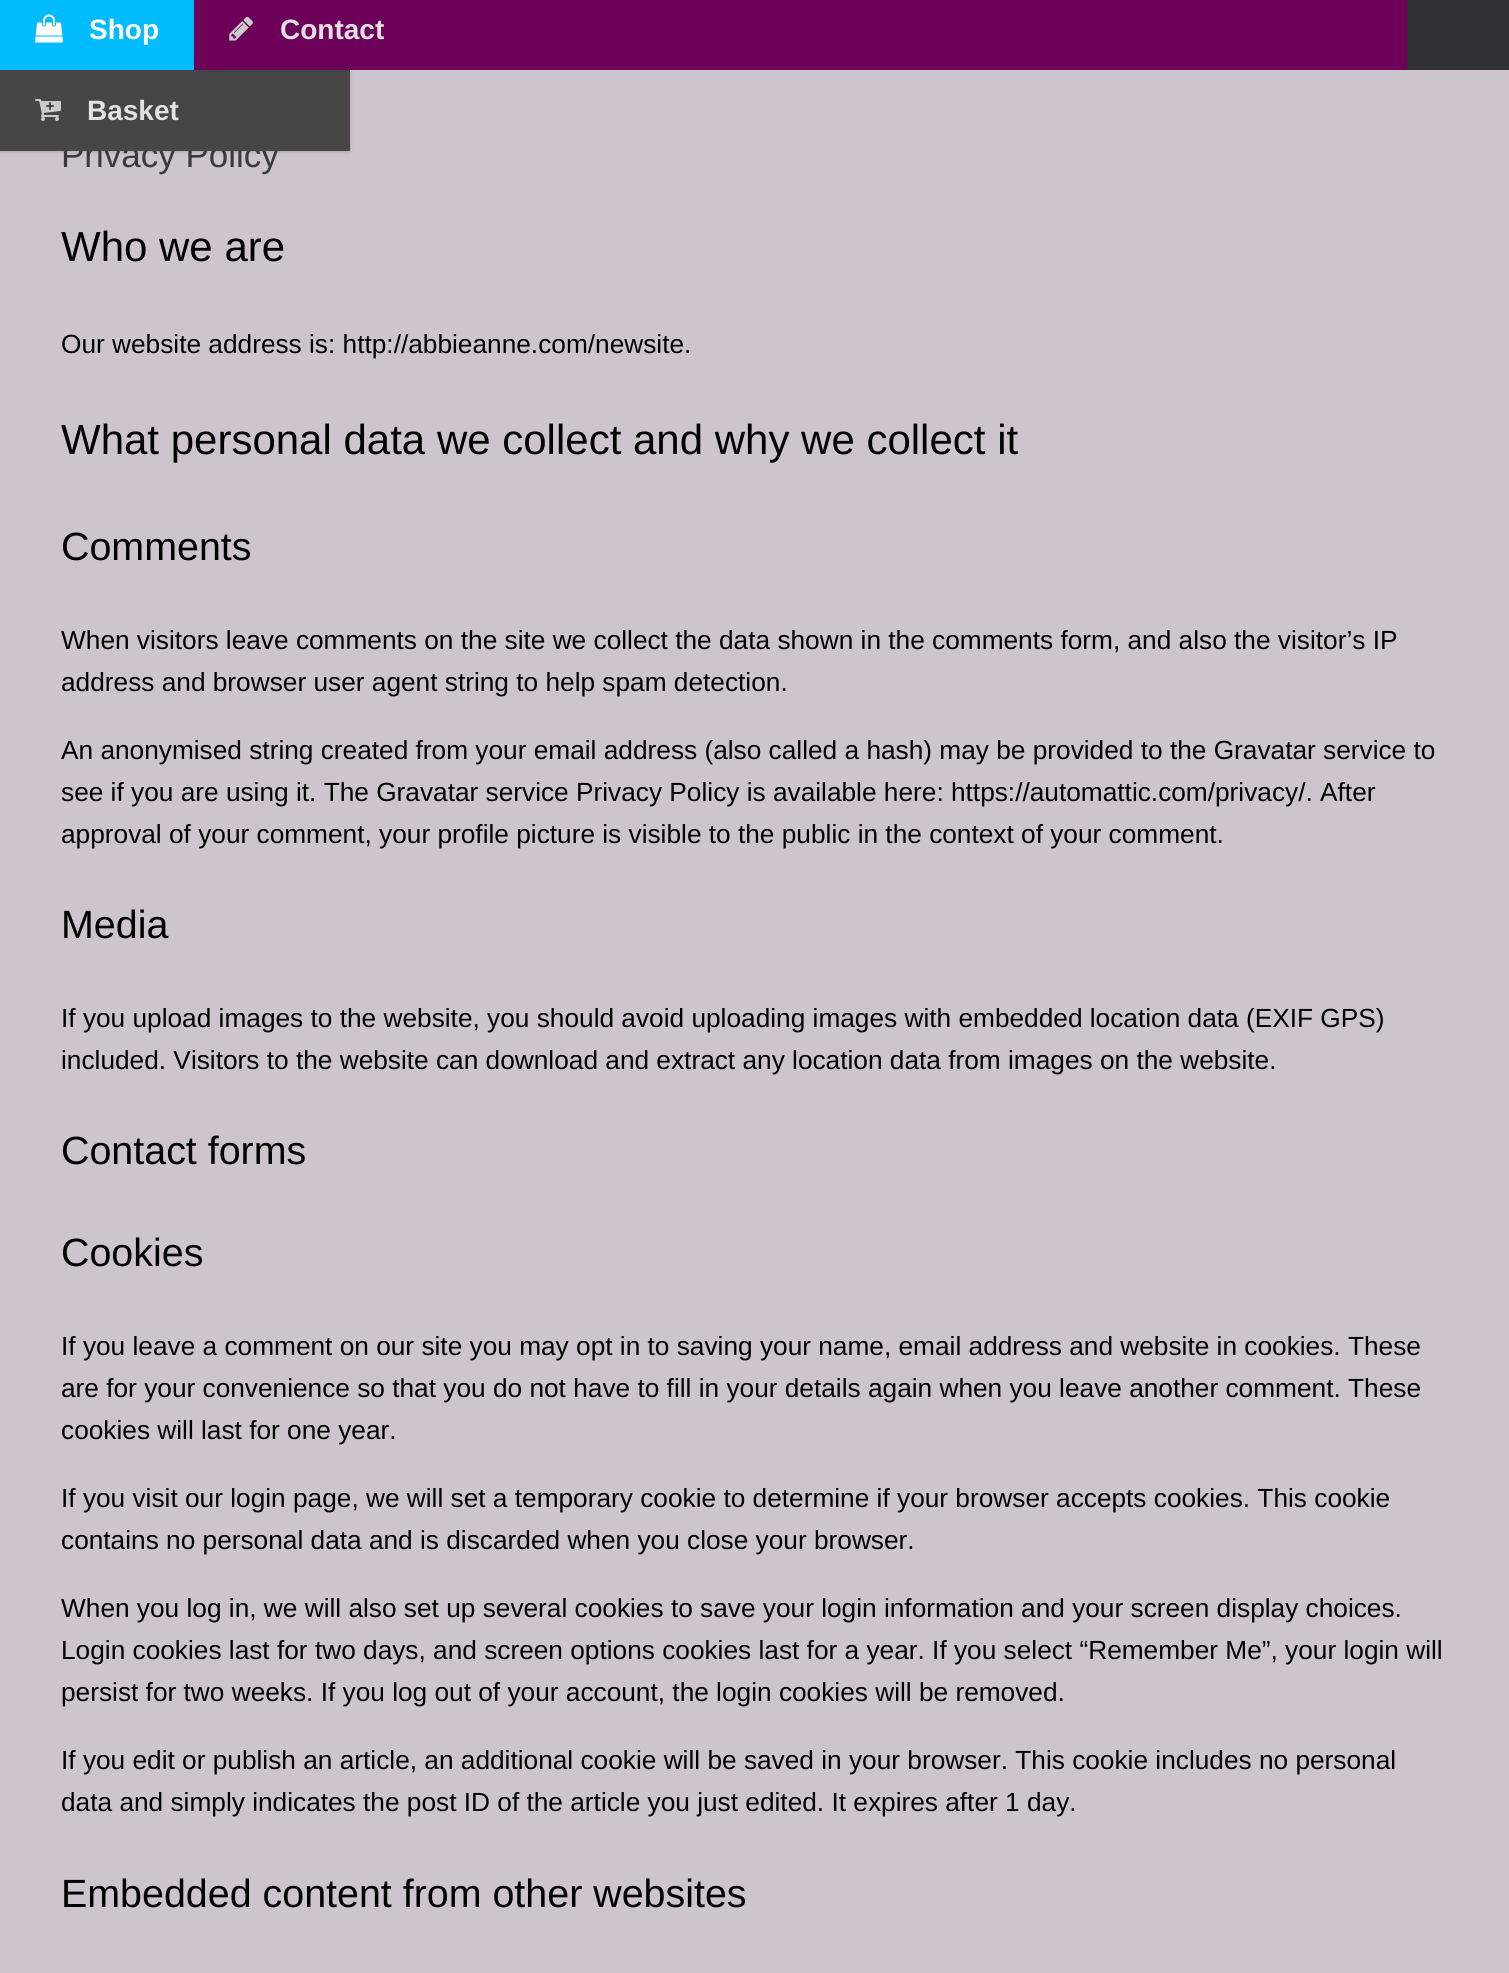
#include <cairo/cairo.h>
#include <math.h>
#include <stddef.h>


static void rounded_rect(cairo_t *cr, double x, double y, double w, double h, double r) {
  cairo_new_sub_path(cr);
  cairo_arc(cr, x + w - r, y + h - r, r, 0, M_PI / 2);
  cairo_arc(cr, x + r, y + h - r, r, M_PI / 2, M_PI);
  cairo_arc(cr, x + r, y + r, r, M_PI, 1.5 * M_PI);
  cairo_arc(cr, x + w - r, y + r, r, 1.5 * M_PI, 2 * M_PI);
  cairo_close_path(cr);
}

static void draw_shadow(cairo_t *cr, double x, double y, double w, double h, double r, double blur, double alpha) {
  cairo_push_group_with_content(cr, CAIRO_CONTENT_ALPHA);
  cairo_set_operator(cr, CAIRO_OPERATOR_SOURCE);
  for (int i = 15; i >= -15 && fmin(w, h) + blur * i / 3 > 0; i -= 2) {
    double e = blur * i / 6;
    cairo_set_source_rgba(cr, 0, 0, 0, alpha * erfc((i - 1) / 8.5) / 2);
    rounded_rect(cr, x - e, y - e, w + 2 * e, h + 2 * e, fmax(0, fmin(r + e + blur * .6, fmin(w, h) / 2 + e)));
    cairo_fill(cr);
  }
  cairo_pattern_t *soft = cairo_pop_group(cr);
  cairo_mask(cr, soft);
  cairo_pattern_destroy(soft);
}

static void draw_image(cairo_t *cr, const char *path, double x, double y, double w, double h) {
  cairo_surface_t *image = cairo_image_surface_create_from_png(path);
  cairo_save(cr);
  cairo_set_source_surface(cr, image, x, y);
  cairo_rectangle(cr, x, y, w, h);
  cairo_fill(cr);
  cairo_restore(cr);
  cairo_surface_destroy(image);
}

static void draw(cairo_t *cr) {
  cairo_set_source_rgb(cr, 206 / 255.0, 196 / 255.0, 205 / 255.0);
  cairo_paint(cr);
  cairo_set_source_rgb(cr, 109 / 255.0, 0, 89 / 255.0);
  cairo_rectangle(cr, 194, 0, 1213, 70);
  cairo_fill(cr);
  cairo_set_source_rgb(cr, 0, 188 / 255.0, 1);
  cairo_rectangle(cr, 0, 0, 194, 70);
  cairo_fill(cr);
  draw_image(cr, "images/1.png", 35, 14, 28, 29);
  cairo_set_source_rgb(cr, 0, 0, 0);
  draw_shadow(cr, 0, 72, 350, 80, 0, 2, 0.15);
  draw_image(cr, "images/3.png", 229, 16, 24, 25);
  cairo_set_source_rgb(cr, 48 / 255.0, 49 / 255.0, 52 / 255.0);
  cairo_rectangle(cr, 1407, 0, 102, 70);
  cairo_fill(cr);
  cairo_select_font_face(cr, "Liberation Sans", CAIRO_FONT_SLANT_NORMAL, CAIRO_FONT_WEIGHT_BOLD);
  cairo_set_font_size(cr, 28);
  cairo_set_source_rgb(cr, 1, 1, 1);
  cairo_move_to(cr, 89, 39);
  cairo_show_text(cr, "Shop");
  cairo_set_source_rgb(cr, 226 / 255.0, 226 / 255.0, 226 / 255.0);
  cairo_move_to(cr, 280, 39);
  cairo_show_text(cr, "Contact");
  cairo_select_font_face(cr, "Liberation Sans", CAIRO_FONT_SLANT_NORMAL, CAIRO_FONT_WEIGHT_NORMAL);
  cairo_set_font_size(cr, 35);
  cairo_set_source_rgb(cr, 59 / 255.0, 59 / 255.0, 59 / 255.0);
  cairo_move_to(cr, 61, 167);
  cairo_show_text(cr, "Privacy Policy");
  cairo_set_source_rgb(cr, 70 / 255.0, 70 / 255.0, 70 / 255.0);
  cairo_rectangle(cr, 0, 70, 350, 81);
  cairo_fill(cr);
  cairo_select_font_face(cr, "Liberation Sans", CAIRO_FONT_SLANT_NORMAL, CAIRO_FONT_WEIGHT_BOLD);
  cairo_set_font_size(cr, 28);
  cairo_set_source_rgb(cr, 226 / 255.0, 226 / 255.0, 226 / 255.0);
  cairo_move_to(cr, 87, 120);
  cairo_show_text(cr, "Basket");
  draw_image(cr, "images/2.png", 35, 99, 26, 22);
  cairo_select_font_face(cr, "Liberation Sans", CAIRO_FONT_SLANT_NORMAL, CAIRO_FONT_WEIGHT_NORMAL);
  cairo_set_font_size(cr, 42);
  cairo_set_source_rgb(cr, 0, 0, 0);
  cairo_move_to(cr, 61, 261);
  cairo_show_text(cr, "Who we are");
  cairo_set_font_size(cr, 26.25);
  cairo_move_to(cr, 61, 353);
  cairo_show_text(cr, "Our website address is: http://abbieanne.com/newsite.");
  cairo_set_font_size(cr, 42);
  cairo_move_to(cr, 61, 454);
  cairo_show_text(cr, "What personal data we collect and why we collect it");
  cairo_set_font_size(cr, 39.4);
  cairo_move_to(cr, 61, 560);
  cairo_show_text(cr, "Comments");
  cairo_set_font_size(cr, 26.25);
  cairo_move_to(cr, 61, 649);
  cairo_show_text(cr, "When visitors leave comments on the site we collect the data shown in the comments form, and also the visitor’s IP");
  cairo_move_to(cr, 61, 691);
  cairo_show_text(cr, "address and browser user agent string to help spam detection.");
  cairo_move_to(cr, 61, 759);
  cairo_show_text(cr, "An anonymised string created from your email address (also called a hash) may be provided to the Gravatar service to");
  cairo_move_to(cr, 61, 801);
  cairo_show_text(cr, "see if you are using it. The Gravatar service Privacy Policy is available here: https://automattic.com/privacy/. After");
  cairo_move_to(cr, 61, 843);
  cairo_show_text(cr, "approval of your comment, your profile picture is visible to the public in the context of your comment.");
  cairo_set_font_size(cr, 39.4);
  cairo_move_to(cr, 61, 938);
  cairo_show_text(cr, "Media");
  cairo_set_font_size(cr, 26.25);
  cairo_move_to(cr, 61, 1027);
  cairo_show_text(cr, "If you upload images to the website, you should avoid uploading images with embedded location data (EXIF GPS)");
  cairo_move_to(cr, 61, 1069);
  cairo_show_text(cr, "included. Visitors to the website can download and extract any location data from images on the website.");
  cairo_set_font_size(cr, 39.4);
  cairo_move_to(cr, 61, 1164);
  cairo_show_text(cr, "Contact forms");
  cairo_move_to(cr, 61, 1266);
  cairo_show_text(cr, "Cookies");
  cairo_set_font_size(cr, 26.25);
  cairo_move_to(cr, 61, 1355);
  cairo_show_text(cr, "If you leave a comment on our site you may opt in to saving your name, email address and website in cookies. These");
  cairo_move_to(cr, 61, 1397);
  cairo_show_text(cr, "are for your convenience so that you do not have to fill in your details again when you leave another comment. These");
  cairo_move_to(cr, 61, 1439);
  cairo_show_text(cr, "cookies will last for one year.");
  cairo_move_to(cr, 61, 1507);
  cairo_show_text(cr, "If you visit our login page, we will set a temporary cookie to determine if your browser accepts cookies. This cookie");
  cairo_move_to(cr, 61, 1549);
  cairo_show_text(cr, "contains no personal data and is discarded when you close your browser.");
  cairo_move_to(cr, 61, 1617);
  cairo_show_text(cr, "When you log in, we will also set up several cookies to save your login information and your screen display choices.");
  cairo_move_to(cr, 61, 1659);
  cairo_show_text(cr, "Login cookies last for two days, and screen options cookies last for a year. If you select “Remember Me”, your login will");
  cairo_move_to(cr, 61, 1701);
  cairo_show_text(cr, "persist for two weeks. If you log out of your account, the login cookies will be removed.");
  cairo_move_to(cr, 61, 1769);
  cairo_show_text(cr, "If you edit or publish an article, an additional cookie will be saved in your browser. This cookie includes no personal");
  cairo_move_to(cr, 61, 1811);
  cairo_show_text(cr, "data and simply indicates the post ID of the article you just edited. It expires after 1 day.");
  cairo_set_font_size(cr, 39.4);
  cairo_move_to(cr, 61, 1907);
  cairo_show_text(cr, "Embedded content from other websites");
}

int main(void) {
  cairo_surface_t *surface = cairo_image_surface_create(CAIRO_FORMAT_RGB24, 1509, 1973);
  cairo_t *cr = cairo_create(surface);
  cairo_font_options_t *options = cairo_font_options_create();
  cairo_font_options_set_hint_metrics(options, CAIRO_HINT_METRICS_OFF);
  cairo_font_options_set_hint_style(options, CAIRO_HINT_STYLE_NONE);
  cairo_set_font_options(cr, options);
  cairo_set_miter_limit(cr, 4);
  draw(cr);
  cairo_surface_write_to_png(surface, "out.png");
  cairo_font_options_destroy(options);
  cairo_destroy(cr);
  cairo_surface_destroy(surface);
  return 0;
}
